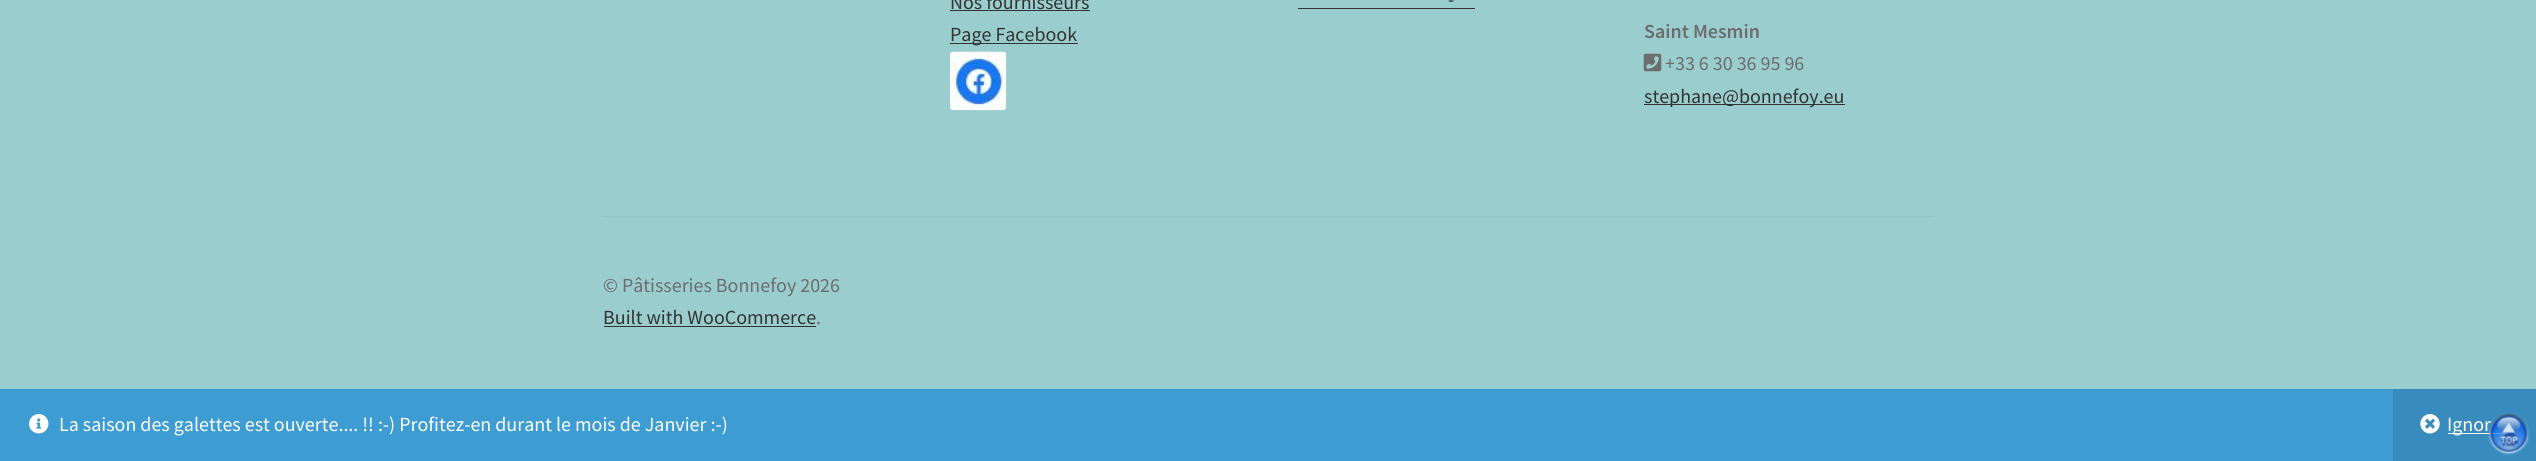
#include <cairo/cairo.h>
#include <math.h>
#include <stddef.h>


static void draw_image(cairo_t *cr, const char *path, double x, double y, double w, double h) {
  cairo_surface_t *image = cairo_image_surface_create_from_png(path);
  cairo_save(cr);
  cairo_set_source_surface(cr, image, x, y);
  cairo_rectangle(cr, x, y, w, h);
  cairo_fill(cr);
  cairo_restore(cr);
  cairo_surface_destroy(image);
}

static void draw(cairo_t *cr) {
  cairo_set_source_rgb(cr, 154 / 255.0, 205 / 255.0, 206 / 255.0);
  cairo_paint(cr);
  cairo_set_source_rgb(cr, 146 / 255.0, 195 / 255.0, 196 / 255.0);
  cairo_rectangle(cr, 604, 216, 1329, 1);
  cairo_fill(cr);
  cairo_set_source_rgb(cr, 51 / 255.0, 51 / 255.0, 51 / 255.0);
  cairo_rectangle(cr, 950, 10, 140, 1);
  cairo_fill(cr);
  cairo_rectangle(cr, 950, 43, 128, 1);
  cairo_fill(cr);
  draw_image(cr, "images/1.png", 950, 51, 57, 60);
  cairo_rectangle(cr, 1298, 8, 177, 1);
  cairo_fill(cr);
  draw_image(cr, "images/2.png", 1643, 53, 19, 19);
  cairo_rectangle(cr, 1644, 104, 201, 1);
  cairo_fill(cr);
  cairo_rectangle(cr, 604, 326, 212, 1);
  cairo_fill(cr);
  cairo_set_source_rgb(cr, 61 / 255.0, 156 / 255.0, 210 / 255.0);
  cairo_rectangle(cr, 0, 389, 2393, 72);
  cairo_fill(cr);
  draw_image(cr, "images/3.png", 29, 414, 20, 20);
  cairo_set_source_rgb(cr, 55 / 255.0, 140 / 255.0, 189 / 255.0);
  cairo_rectangle(cr, 2393, 389, 143, 72);
  cairo_fill(cr);
  draw_image(cr, "images/4.png", 2420, 414, 20, 20);
  cairo_set_source_rgb(cr, 1, 1, 1);
  cairo_rectangle(cr, 2448, 433, 60, 1);
  cairo_fill(cr);
  cairo_select_font_face(cr, "Source Sans Pro", CAIRO_FONT_SLANT_NORMAL, CAIRO_FONT_WEIGHT_NORMAL);
  cairo_set_font_size(cr, 20);
  cairo_set_source_rgb(cr, 51 / 255.0, 51 / 255.0, 51 / 255.0);
  cairo_move_to(cr, 950, 9);
  cairo_show_text(cr, "Nos fournisseurs");
  cairo_move_to(cr, 950, 41);
  cairo_show_text(cr, "Page Facebook");
  cairo_move_to(cr, 1448, 6);
  cairo_show_text(cr, "-");
  cairo_select_font_face(cr, "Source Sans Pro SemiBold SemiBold", CAIRO_FONT_SLANT_NORMAL, CAIRO_FONT_WEIGHT_NORMAL);
  cairo_set_source_rgb(cr, 109 / 255.0, 109 / 255.0, 109 / 255.0);
  cairo_move_to(cr, 1644, 38);
  cairo_show_text(cr, "Saint Mesmin");
  cairo_select_font_face(cr, "Source Sans Pro", CAIRO_FONT_SLANT_NORMAL, CAIRO_FONT_WEIGHT_NORMAL);
  cairo_move_to(cr, 1665, 70);
  cairo_show_text(cr, "+33 6 30 36 95 96");
  cairo_set_source_rgb(cr, 51 / 255.0, 51 / 255.0, 51 / 255.0);
  cairo_move_to(cr, 1644, 103);
  cairo_show_text(cr, "stephane@bonnefoy.eu");
  cairo_set_source_rgb(cr, 109 / 255.0, 109 / 255.0, 109 / 255.0);
  cairo_move_to(cr, 603, 292);
  cairo_show_text(cr, "© Pâtisseries Bonnefoy 2026");
  cairo_set_source_rgb(cr, 51 / 255.0, 51 / 255.0, 51 / 255.0);
  cairo_move_to(cr, 603, 324);
  cairo_show_text(cr, "Built with WooCommerce");
  cairo_set_source_rgb(cr, 109 / 255.0, 109 / 255.0, 109 / 255.0);
  cairo_move_to(cr, 816, 324);
  cairo_show_text(cr, ".");
  cairo_set_source_rgb(cr, 1, 1, 1);
  cairo_move_to(cr, 59, 431);
  cairo_show_text(cr, "La saison des galettes est ouverte.... !! :-) Profitez-en durant le mois de Janvier :-)");
  cairo_move_to(cr, 2447, 431);
  cairo_show_text(cr, "Ignor");
  draw_image(cr, "images/5.png", 2487, 412, 43, 44);
}

int main(void) {
  cairo_surface_t *surface = cairo_image_surface_create(CAIRO_FORMAT_RGB24, 2536, 461);
  cairo_t *cr = cairo_create(surface);
  cairo_font_options_t *options = cairo_font_options_create();
  cairo_font_options_set_hint_metrics(options, CAIRO_HINT_METRICS_OFF);
  cairo_font_options_set_hint_style(options, CAIRO_HINT_STYLE_NONE);
  cairo_set_font_options(cr, options);
  cairo_set_miter_limit(cr, 4);
  draw(cr);
  cairo_surface_write_to_png(surface, "out.png");
  cairo_font_options_destroy(options);
  cairo_destroy(cr);
  cairo_surface_destroy(surface);
  return 0;
}
